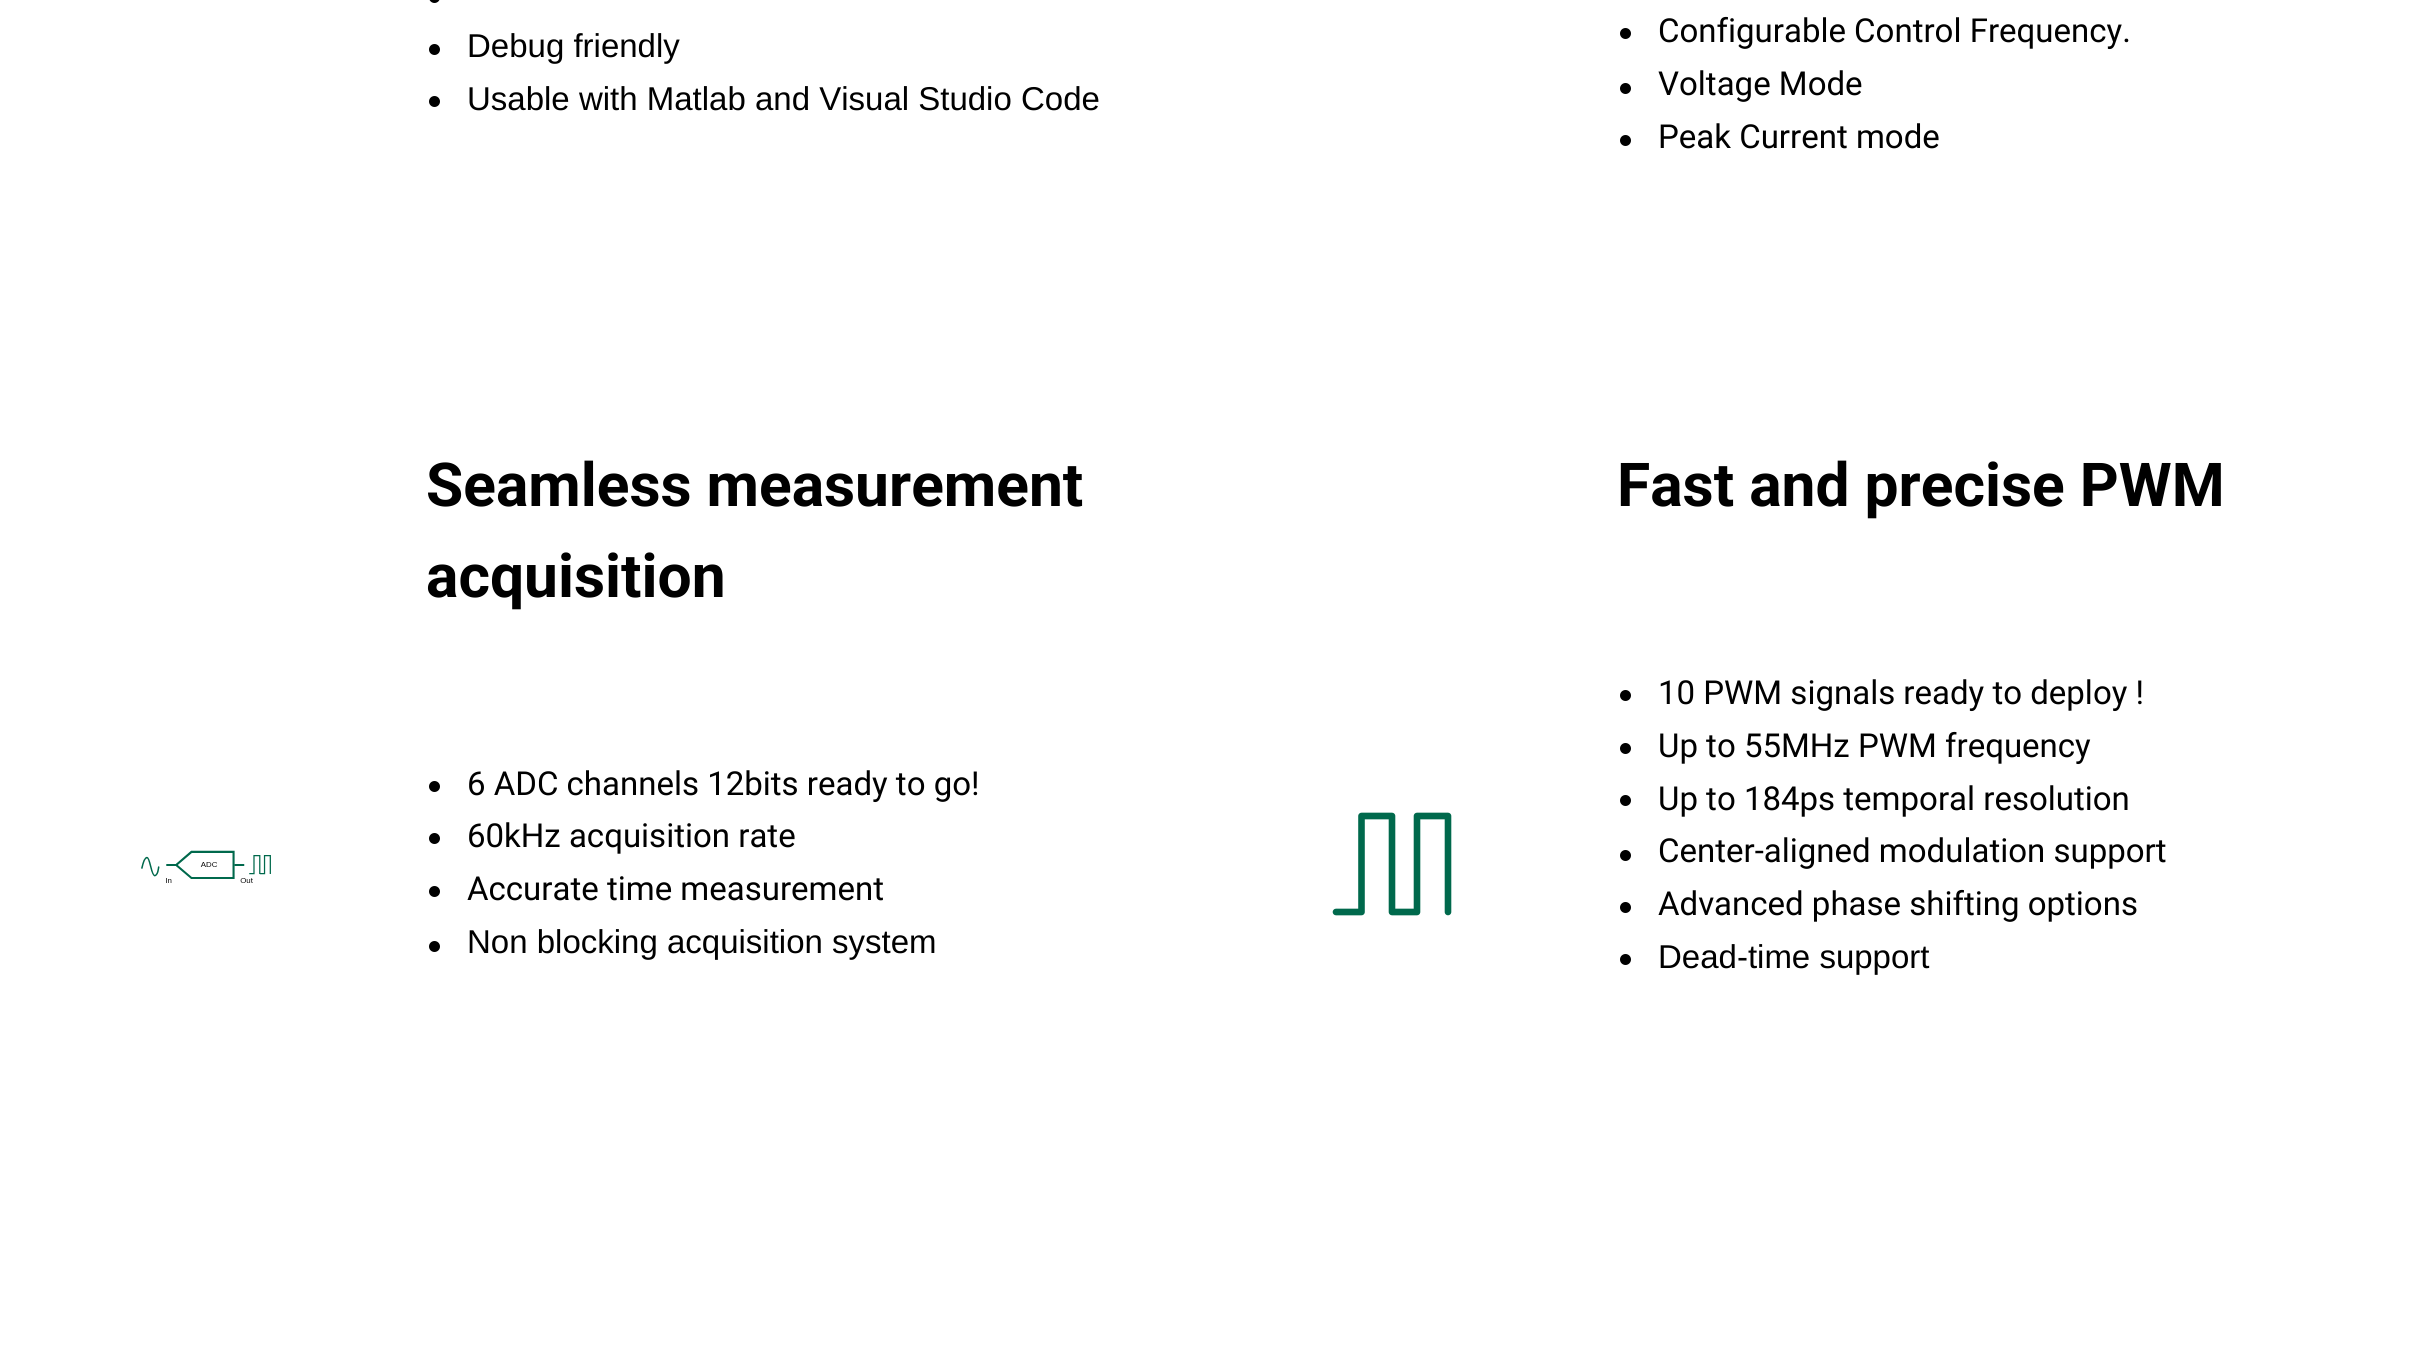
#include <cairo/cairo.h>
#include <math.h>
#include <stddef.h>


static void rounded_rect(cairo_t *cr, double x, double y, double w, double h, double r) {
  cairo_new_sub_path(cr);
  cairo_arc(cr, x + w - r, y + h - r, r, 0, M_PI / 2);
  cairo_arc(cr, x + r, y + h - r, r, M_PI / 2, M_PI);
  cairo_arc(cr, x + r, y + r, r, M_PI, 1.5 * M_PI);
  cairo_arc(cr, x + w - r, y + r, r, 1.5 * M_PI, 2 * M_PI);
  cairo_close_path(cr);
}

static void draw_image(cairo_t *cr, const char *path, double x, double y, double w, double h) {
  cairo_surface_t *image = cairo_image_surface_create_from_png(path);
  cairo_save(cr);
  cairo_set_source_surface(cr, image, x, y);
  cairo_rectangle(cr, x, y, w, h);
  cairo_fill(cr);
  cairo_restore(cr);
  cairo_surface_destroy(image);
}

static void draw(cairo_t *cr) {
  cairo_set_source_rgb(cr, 1, 1, 1);
  cairo_paint(cr);
  cairo_set_source_rgb(cr, 0, 0, 0);
  rounded_rect(cr, 429, -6, 11, 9, 5.5);
  cairo_fill(cr);
  cairo_arc(cr, 434.5, 49.5, 5.5, 0, 2 * M_PI);
  cairo_fill(cr);
  cairo_arc(cr, 434.5, 101.5, 5.5, 0, 2 * M_PI);
  cairo_fill(cr);
  cairo_arc(cr, 1625.5, 33.5, 5.5, 0, 2 * M_PI);
  cairo_fill(cr);
  cairo_arc(cr, 1625.5, 88.5, 5.5, 0, 2 * M_PI);
  cairo_fill(cr);
  cairo_arc(cr, 1625.5, 140.5, 5.5, 0, 2 * M_PI);
  cairo_fill(cr);
  draw_image(cr, "images/1.png", 141, 850, 130, 33);
  cairo_arc(cr, 434.5, 786.5, 5.5, 0, 2 * M_PI);
  cairo_fill(cr);
  cairo_arc(cr, 434.5, 838.5, 5.5, 0, 2 * M_PI);
  cairo_fill(cr);
  cairo_arc(cr, 434.5, 891.5, 5.5, 0, 2 * M_PI);
  cairo_fill(cr);
  cairo_arc(cr, 434.5, 946.5, 5.5, 0, 2 * M_PI);
  cairo_fill(cr);
  cairo_new_path(cr);
  cairo_move_to(cr, 1392, 912);
  cairo_line_to(cr, 1417, 912);
  cairo_line_to(cr, 1417, 816);
  cairo_line_to(cr, 1448, 816);
  cairo_line_to(cr, 1448, 912);
  cairo_move_to(cr, 1336, 912);
  cairo_line_to(cr, 1361.5, 912);
  cairo_line_to(cr, 1361.5, 816);
  cairo_line_to(cr, 1392, 816);
  cairo_line_to(cr, 1392, 912);
  cairo_set_source_rgb(cr, 0, 105 / 255.0, 76 / 255.0);
  cairo_set_line_width(cr, 6.6);
  cairo_set_line_cap(cr, CAIRO_LINE_CAP_ROUND);
  cairo_set_line_join(cr, CAIRO_LINE_JOIN_ROUND);
  cairo_stroke(cr);
  cairo_set_source_rgb(cr, 0, 0, 0);
  cairo_arc(cr, 1625.5, 695.5, 5.5, 0, 2 * M_PI);
  cairo_fill(cr);
  cairo_arc(cr, 1625.5, 748.5, 5.5, 0, 2 * M_PI);
  cairo_fill(cr);
  cairo_arc(cr, 1625.5, 800.5, 5.5, 0, 2 * M_PI);
  cairo_fill(cr);
  cairo_arc(cr, 1625.5, 855.5, 5.5, 0, 2 * M_PI);
  cairo_fill(cr);
  cairo_arc(cr, 1625.5, 907.5, 5.5, 0, 2 * M_PI);
  cairo_fill(cr);
  cairo_arc(cr, 1625.5, 959.5, 5.5, 0, 2 * M_PI);
  cairo_fill(cr);
  cairo_select_font_face(cr, "Liberation Sans", CAIRO_FONT_SLANT_NORMAL, CAIRO_FONT_WEIGHT_NORMAL);
  cairo_set_font_size(cr, 33);
  cairo_move_to(cr, 467, 57);
  cairo_show_text(cr, "Debug friendly");
  cairo_move_to(cr, 467, 110);
  cairo_show_text(cr, "Usable with Matlab and Visual Studio Code");
  cairo_select_font_face(cr, "Roboto", CAIRO_FONT_SLANT_NORMAL, CAIRO_FONT_WEIGHT_NORMAL);
  cairo_move_to(cr, 1658, 42);
  cairo_show_text(cr, "Configurable Control Frequency.");
  cairo_move_to(cr, 1658, 95);
  cairo_show_text(cr, "Voltage Mode");
  cairo_move_to(cr, 1658, 148);
  cairo_show_text(cr, "Peak Current mode");
  cairo_select_font_face(cr, "Roboto", CAIRO_FONT_SLANT_NORMAL, CAIRO_FONT_WEIGHT_BOLD);
  cairo_set_font_size(cr, 60.5);
  cairo_move_to(cr, 426, 506);
  cairo_show_text(cr, "Seamless measurement");
  cairo_move_to(cr, 426, 597);
  cairo_show_text(cr, "acquisition");
  cairo_select_font_face(cr, "Roboto", CAIRO_FONT_SLANT_NORMAL, CAIRO_FONT_WEIGHT_NORMAL);
  cairo_set_font_size(cr, 33);
  cairo_move_to(cr, 467, 795);
  cairo_show_text(cr, "6 ADC channels 12bits ready to go!");
  cairo_move_to(cr, 467, 847);
  cairo_show_text(cr, "60kHz acquisition rate");
  cairo_move_to(cr, 467, 900);
  cairo_show_text(cr, "Accurate time measurement");
  cairo_select_font_face(cr, "Liberation Sans", CAIRO_FONT_SLANT_NORMAL, CAIRO_FONT_WEIGHT_NORMAL);
  cairo_move_to(cr, 467, 953);
  cairo_show_text(cr, "Non blocking acquisition system");
  cairo_select_font_face(cr, "Roboto", CAIRO_FONT_SLANT_NORMAL, CAIRO_FONT_WEIGHT_BOLD);
  cairo_set_font_size(cr, 60.5);
  cairo_move_to(cr, 1617, 506);
  cairo_show_text(cr, "Fast and precise PWM");
  cairo_select_font_face(cr, "Roboto", CAIRO_FONT_SLANT_NORMAL, CAIRO_FONT_WEIGHT_NORMAL);
  cairo_set_font_size(cr, 33);
  cairo_move_to(cr, 1658, 704);
  cairo_show_text(cr, "10 PWM signals ready to deploy !");
  cairo_move_to(cr, 1658, 757);
  cairo_show_text(cr, "Up to 55MHz PWM frequency");
  cairo_move_to(cr, 1658, 810);
  cairo_show_text(cr, "Up to 184ps temporal resolution");
  cairo_move_to(cr, 1658, 862);
  cairo_show_text(cr, "Center-aligned modulation support");
  cairo_move_to(cr, 1658, 915);
  cairo_show_text(cr, "Advanced phase shifting options");
  cairo_select_font_face(cr, "Liberation Sans", CAIRO_FONT_SLANT_NORMAL, CAIRO_FONT_WEIGHT_NORMAL);
  cairo_move_to(cr, 1658, 968);
  cairo_show_text(cr, "Dead-time support");
}

int main(void) {
  cairo_surface_t *surface = cairo_image_surface_create(CAIRO_FORMAT_RGB24, 2434, 1346);
  cairo_t *cr = cairo_create(surface);
  cairo_font_options_t *options = cairo_font_options_create();
  cairo_font_options_set_hint_metrics(options, CAIRO_HINT_METRICS_OFF);
  cairo_font_options_set_hint_style(options, CAIRO_HINT_STYLE_NONE);
  cairo_set_font_options(cr, options);
  cairo_set_miter_limit(cr, 4);
  draw(cr);
  cairo_surface_write_to_png(surface, "out.png");
  cairo_font_options_destroy(options);
  cairo_destroy(cr);
  cairo_surface_destroy(surface);
  return 0;
}
